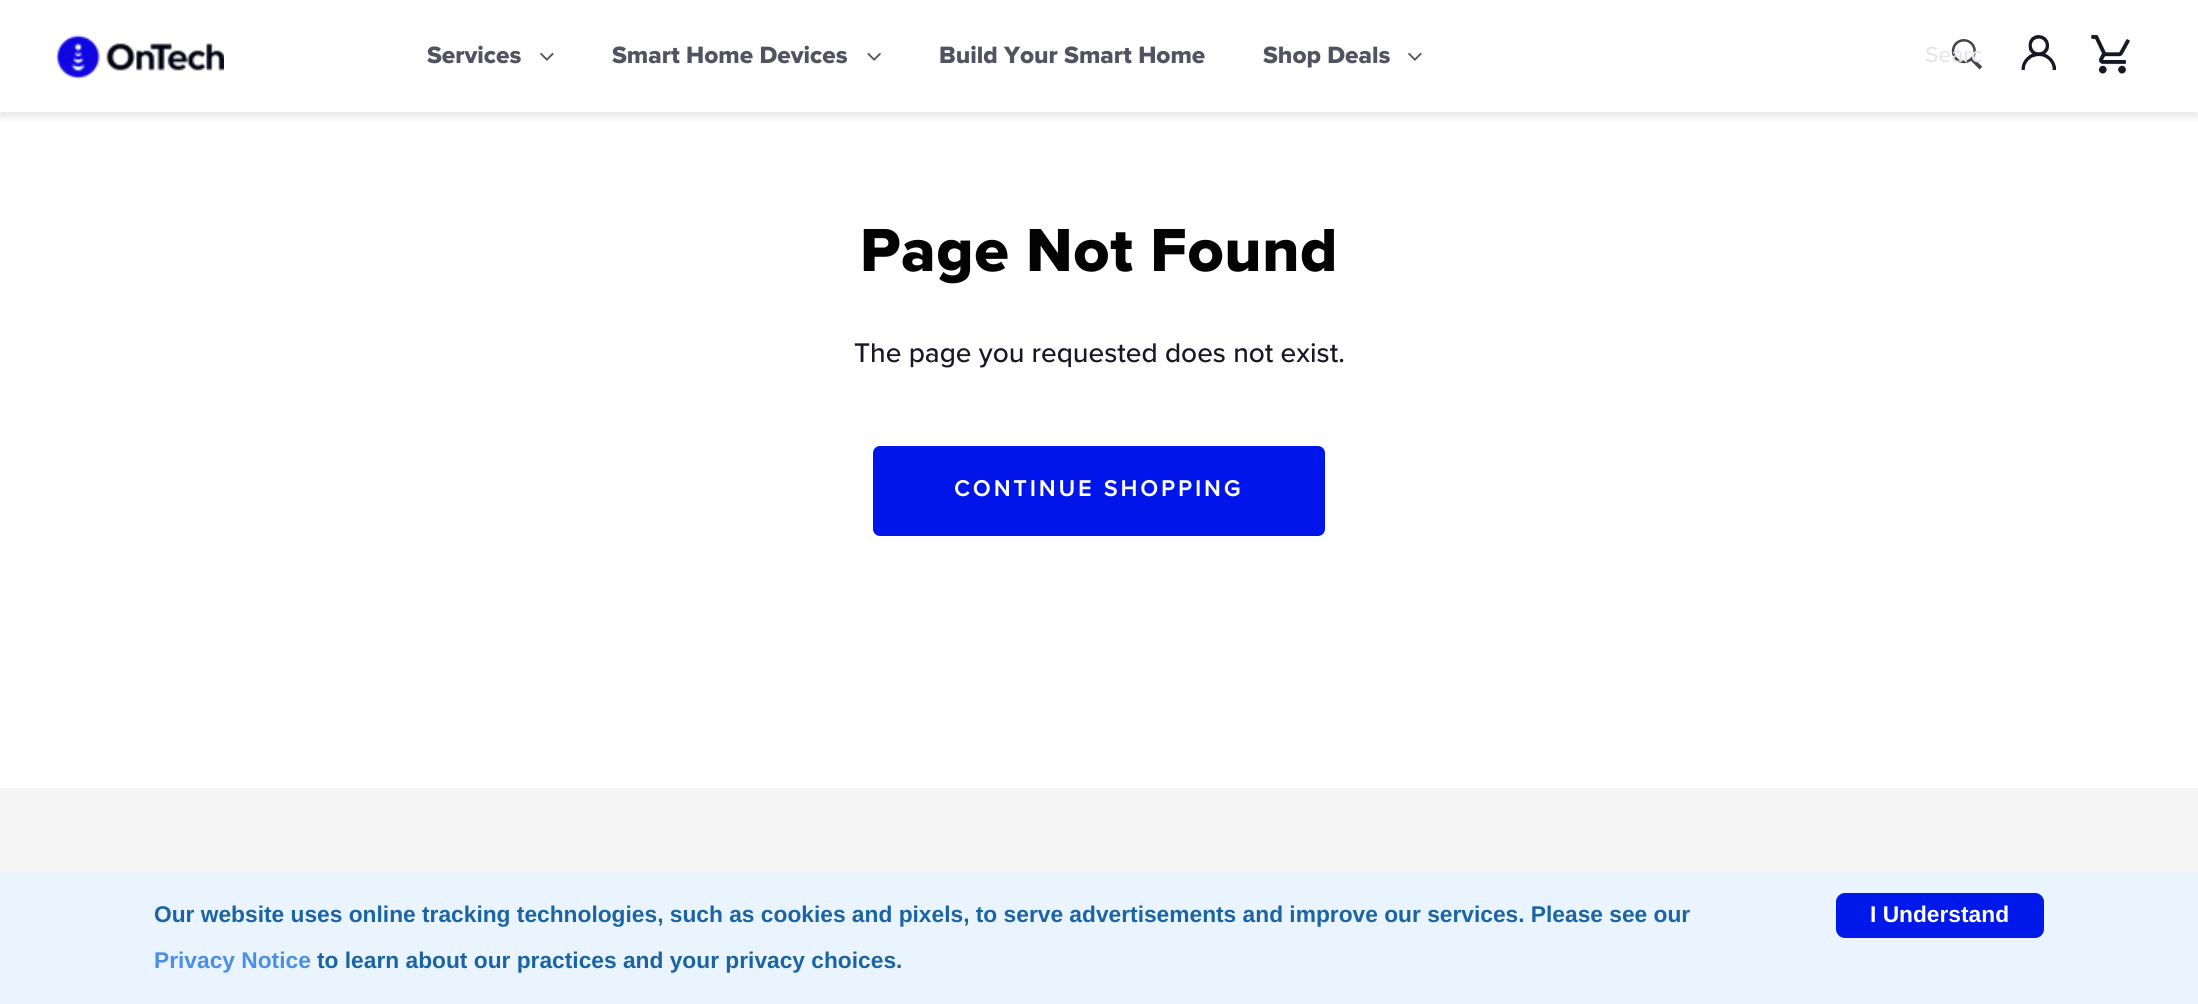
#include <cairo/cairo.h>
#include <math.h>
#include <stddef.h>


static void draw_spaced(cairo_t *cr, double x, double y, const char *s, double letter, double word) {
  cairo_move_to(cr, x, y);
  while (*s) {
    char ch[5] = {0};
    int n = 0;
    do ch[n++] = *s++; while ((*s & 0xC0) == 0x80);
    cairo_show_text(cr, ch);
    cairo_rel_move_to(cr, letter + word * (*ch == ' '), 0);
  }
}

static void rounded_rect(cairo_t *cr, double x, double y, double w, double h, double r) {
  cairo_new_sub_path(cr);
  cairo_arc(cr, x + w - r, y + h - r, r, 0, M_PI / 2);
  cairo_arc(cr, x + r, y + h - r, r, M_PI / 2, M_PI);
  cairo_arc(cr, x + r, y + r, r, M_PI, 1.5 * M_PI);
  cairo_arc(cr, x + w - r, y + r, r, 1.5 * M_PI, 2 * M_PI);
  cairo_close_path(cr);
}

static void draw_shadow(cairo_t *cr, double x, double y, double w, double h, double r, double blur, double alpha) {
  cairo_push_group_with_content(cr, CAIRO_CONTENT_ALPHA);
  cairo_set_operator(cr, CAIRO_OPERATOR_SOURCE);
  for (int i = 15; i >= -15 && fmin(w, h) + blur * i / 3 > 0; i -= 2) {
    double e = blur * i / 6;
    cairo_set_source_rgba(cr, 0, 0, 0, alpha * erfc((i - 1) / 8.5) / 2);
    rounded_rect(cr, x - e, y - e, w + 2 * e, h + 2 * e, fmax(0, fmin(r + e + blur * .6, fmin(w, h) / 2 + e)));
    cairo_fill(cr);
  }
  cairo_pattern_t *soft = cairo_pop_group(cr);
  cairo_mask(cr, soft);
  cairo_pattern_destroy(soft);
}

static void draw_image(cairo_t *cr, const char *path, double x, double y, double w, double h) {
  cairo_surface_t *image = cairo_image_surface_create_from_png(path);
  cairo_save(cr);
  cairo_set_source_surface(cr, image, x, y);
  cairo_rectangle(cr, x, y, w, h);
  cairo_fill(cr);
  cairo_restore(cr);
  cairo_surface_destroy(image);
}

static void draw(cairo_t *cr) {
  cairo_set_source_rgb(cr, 1, 1, 1);
  cairo_paint(cr);
  cairo_save(cr);
  cairo_rectangle(cr, 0, 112, 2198, 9);
  cairo_clip(cr);
  cairo_set_source_rgb(cr, 0, 0, 0);
  draw_shadow(cr, 0, 5, 2198, 112, 0, 4.5, 0.1);
  cairo_restore(cr);
  draw_image(cr, "images/1.png", 55, 34, 169, 45);
  draw_image(cr, "images/2.png", 540, 52, 14, 9);
  draw_image(cr, "images/3.png", 867, 52, 14, 9);
  draw_image(cr, "images/2.png", 1408, 52, 14, 9);
  draw_image(cr, "images/4.png", 1951, 39, 32, 31);
  draw_image(cr, "images/5.png", 2021, 35, 35, 35);
  draw_image(cr, "images/6.png", 2091, 35, 39, 39);
  cairo_set_source_rgb(cr, 0, 21 / 255.0, 234 / 255.0);
  rounded_rect(cr, 873, 446, 452, 90, 7);
  cairo_fill(cr);
  cairo_set_source_rgb(cr, 245 / 255.0, 245 / 255.0, 246 / 255.0);
  cairo_rectangle(cr, 0, 788, 2198, 84);
  cairo_fill(cr);
  cairo_set_source_rgb(cr, 233 / 255.0, 244 / 255.0, 1);
  cairo_rectangle(cr, 0, 872, 2198, 132);
  cairo_fill(cr);
  cairo_set_source_rgb(cr, 0, 24 / 255.0, 234 / 255.0);
  rounded_rect(cr, 1836, 893, 208, 45, 9);
  cairo_fill(cr);
  cairo_select_font_face(cr, "Proxima Nova ExtraBold", CAIRO_FONT_SLANT_NORMAL, CAIRO_FONT_WEIGHT_NORMAL);
  cairo_set_font_size(cr, 24.5);
  cairo_set_source_rgb(cr, 82 / 255.0, 82 / 255.0, 97 / 255.0);
  cairo_move_to(cr, 427, 63);
  cairo_show_text(cr, "Services");
  cairo_move_to(cr, 612, 63);
  cairo_show_text(cr, "Smart Home Devices");
  cairo_move_to(cr, 939, 63);
  cairo_show_text(cr, "Build Your Smart Home");
  cairo_move_to(cr, 1263, 63);
  cairo_show_text(cr, "Shop Deals");
  cairo_select_font_face(cr, "Proxima Nova Medium", CAIRO_FONT_SLANT_NORMAL, CAIRO_FONT_WEIGHT_NORMAL);
  cairo_set_font_size(cr, 22.75);
  cairo_set_source_rgb(cr, 230 / 255.0, 230 / 255.0, 231 / 255.0);
  cairo_move_to(cr, 1925, 62);
  cairo_show_text(cr, "Searc");
  cairo_select_font_face(cr, "Proxima Nova ExtraBold", CAIRO_FONT_SLANT_NORMAL, CAIRO_FONT_WEIGHT_NORMAL);
  cairo_set_font_size(cr, 63);
  cairo_set_source_rgb(cr, 3 / 255.0, 3 / 255.0, 3 / 255.0);
  draw_spaced(cr, 860, 271, "Page Not Found", 0.6, 0);
  cairo_select_font_face(cr, "Proxima Nova Medium", CAIRO_FONT_SLANT_NORMAL, CAIRO_FONT_WEIGHT_NORMAL);
  cairo_set_font_size(cr, 28);
  cairo_set_source_rgb(cr, 23 / 255.0, 23 / 255.0, 37 / 255.0);
  cairo_move_to(cr, 854, 362);
  cairo_show_text(cr, "The page you requested does not exist.");
  cairo_select_font_face(cr, "Proxima Nova", CAIRO_FONT_SLANT_NORMAL, CAIRO_FONT_WEIGHT_BOLD);
  cairo_set_font_size(cr, 22.75);
  cairo_set_source_rgb(cr, 1, 1, 1);
  draw_spaced(cr, 954, 496, "CONTINUE SHOPPING", 3.4, 0);
  cairo_select_font_face(cr, "Liberation Sans", CAIRO_FONT_SLANT_NORMAL, CAIRO_FONT_WEIGHT_BOLD);
  cairo_set_source_rgb(cr, 27 / 255.0, 99 / 255.0, 163 / 255.0);
  cairo_move_to(cr, 154, 922);
  cairo_show_text(cr, "Our website uses online tracking technologies, such as cookies and pixels, to serve advertisements and improve our services. Please see our");
  cairo_set_source_rgb(cr, 75 / 255.0, 142 / 255.0, 231 / 255.0);
  cairo_move_to(cr, 154, 968);
  cairo_show_text(cr, "Privacy Notice");
  cairo_set_source_rgb(cr, 27 / 255.0, 99 / 255.0, 163 / 255.0);
  cairo_move_to(cr, 317, 968);
  cairo_show_text(cr, "to learn about our practices and your privacy choices.");
  cairo_set_source_rgb(cr, 1, 1, 1);
  cairo_move_to(cr, 1870, 922);
  cairo_show_text(cr, "I Understand");
}

int main(void) {
  cairo_surface_t *surface = cairo_image_surface_create(CAIRO_FORMAT_RGB24, 2198, 1004);
  cairo_t *cr = cairo_create(surface);
  cairo_font_options_t *options = cairo_font_options_create();
  cairo_font_options_set_hint_metrics(options, CAIRO_HINT_METRICS_OFF);
  cairo_font_options_set_hint_style(options, CAIRO_HINT_STYLE_NONE);
  cairo_set_font_options(cr, options);
  cairo_set_miter_limit(cr, 4);
  draw(cr);
  cairo_surface_write_to_png(surface, "out.png");
  cairo_font_options_destroy(options);
  cairo_destroy(cr);
  cairo_surface_destroy(surface);
  return 0;
}
